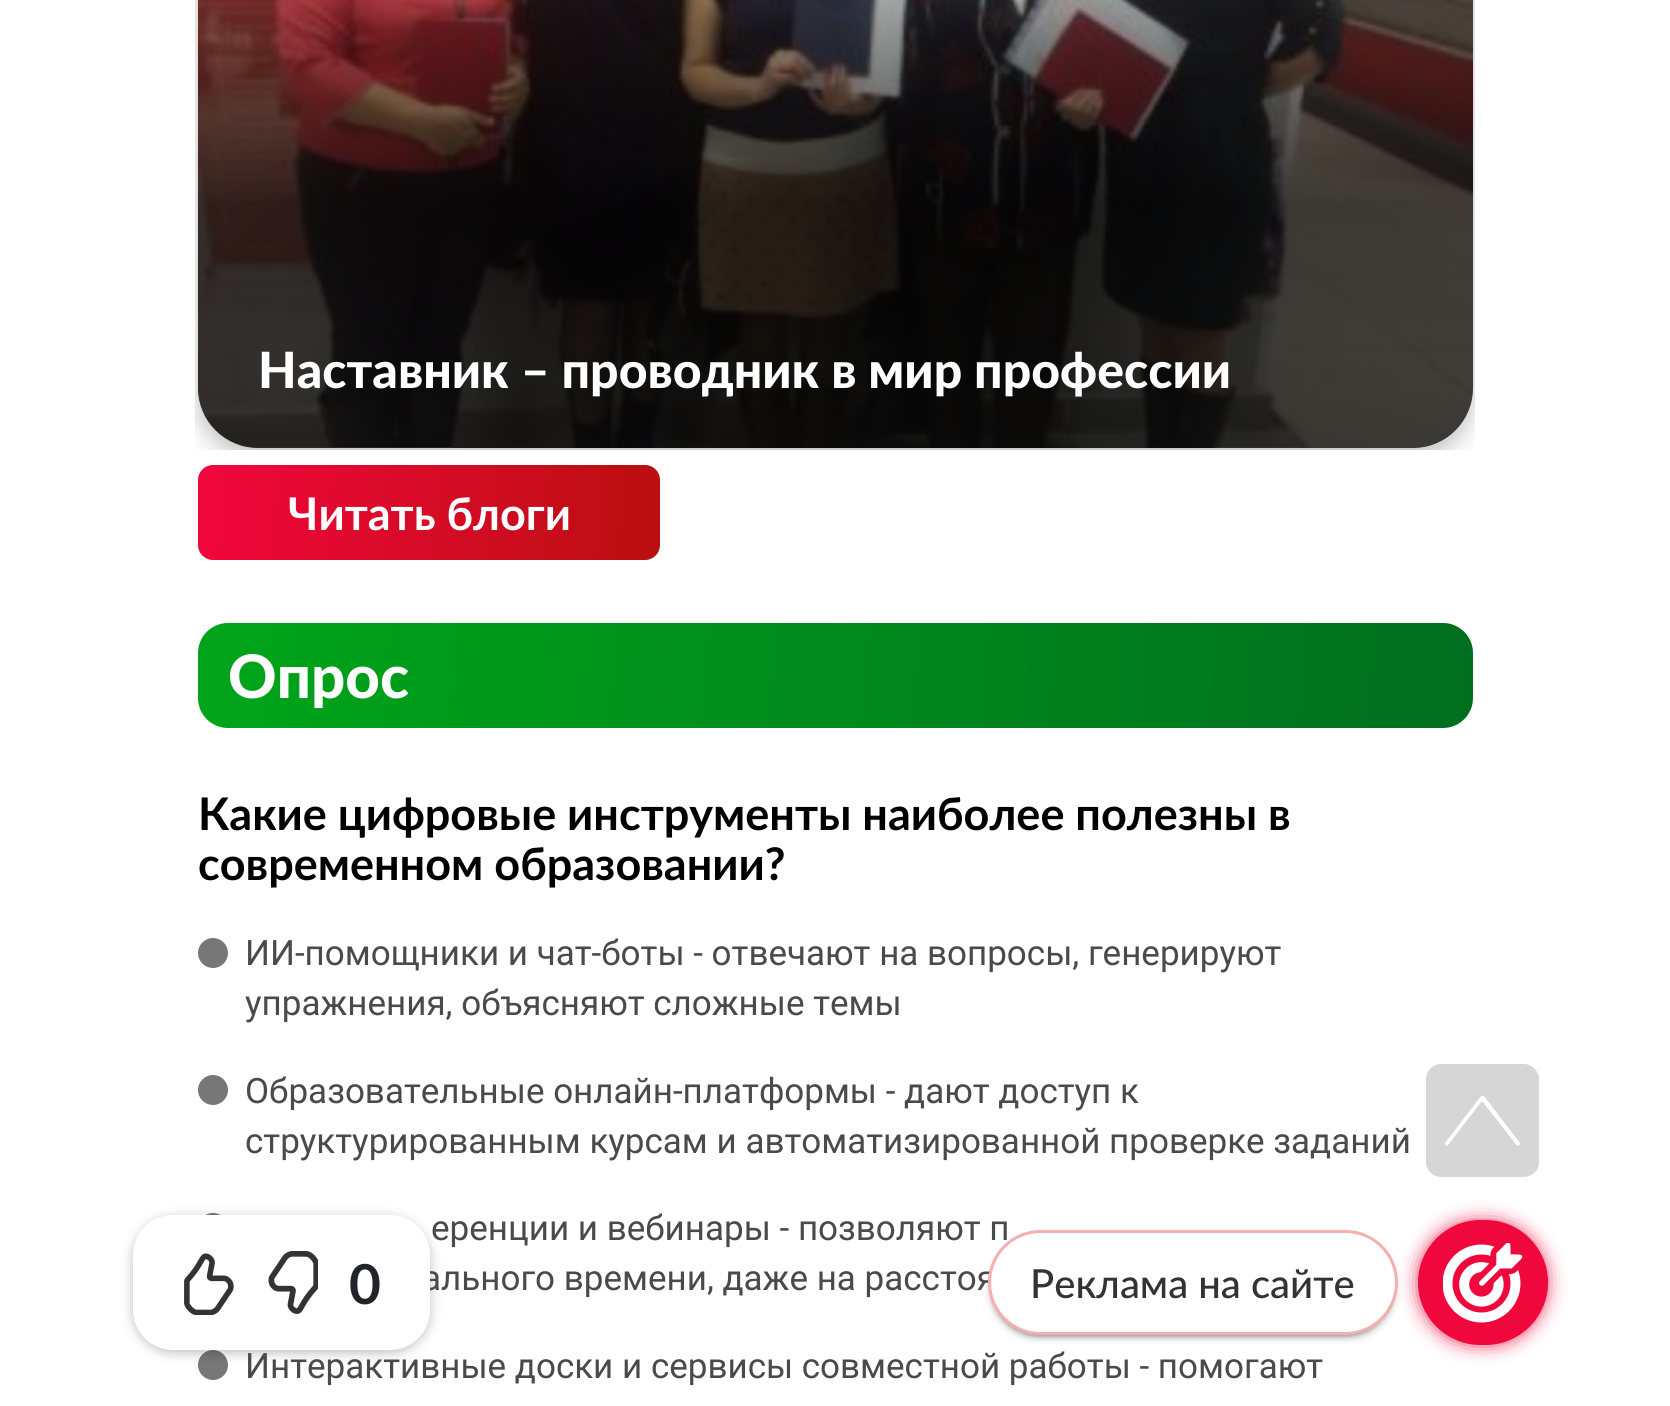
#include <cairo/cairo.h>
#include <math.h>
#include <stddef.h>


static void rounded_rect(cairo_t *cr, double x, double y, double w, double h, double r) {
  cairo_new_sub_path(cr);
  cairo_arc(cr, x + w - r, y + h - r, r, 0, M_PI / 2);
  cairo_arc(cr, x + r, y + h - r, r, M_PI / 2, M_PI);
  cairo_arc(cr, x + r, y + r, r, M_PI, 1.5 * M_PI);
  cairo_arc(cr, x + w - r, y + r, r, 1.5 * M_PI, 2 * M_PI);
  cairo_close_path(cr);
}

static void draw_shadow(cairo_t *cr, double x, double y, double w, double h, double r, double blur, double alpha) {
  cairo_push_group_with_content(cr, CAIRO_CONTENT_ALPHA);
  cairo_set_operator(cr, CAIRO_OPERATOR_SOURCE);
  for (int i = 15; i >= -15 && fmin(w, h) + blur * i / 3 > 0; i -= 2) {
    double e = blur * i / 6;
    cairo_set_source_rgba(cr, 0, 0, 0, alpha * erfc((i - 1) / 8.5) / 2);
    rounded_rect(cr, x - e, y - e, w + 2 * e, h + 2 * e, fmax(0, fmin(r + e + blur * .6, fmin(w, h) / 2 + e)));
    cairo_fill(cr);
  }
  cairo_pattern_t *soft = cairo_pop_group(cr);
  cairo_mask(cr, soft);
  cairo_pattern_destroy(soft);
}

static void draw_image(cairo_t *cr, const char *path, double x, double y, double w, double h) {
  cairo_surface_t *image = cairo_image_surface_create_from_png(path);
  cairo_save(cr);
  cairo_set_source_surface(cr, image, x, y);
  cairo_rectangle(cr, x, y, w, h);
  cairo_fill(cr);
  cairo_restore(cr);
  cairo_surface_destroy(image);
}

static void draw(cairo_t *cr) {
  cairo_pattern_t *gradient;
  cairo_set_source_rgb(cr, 1, 1, 1);
  cairo_paint(cr);
  draw_image(cr, "images/1.png", 195, 0, 1280, 450);
  gradient = cairo_pattern_create_linear(835, 448, 835, -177);
  cairo_pattern_add_color_stop_rgba(gradient, 0.39, 0, 0, 0, 0.75);
  cairo_pattern_add_color_stop_rgba(gradient, 1, 0, 0, 0, 0);
  cairo_set_source(cr, gradient);
  cairo_pattern_destroy(gradient);
  rounded_rect(cr, 198, -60, 1275, 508, 60);
  cairo_fill(cr);
  gradient = cairo_pattern_create_linear(195, 490, 662, 535);
  cairo_pattern_add_color_stop_rgba(gradient, 0.05, 240 / 255.0, 7 / 255.0, 59 / 255.0, 1);
  cairo_pattern_add_color_stop_rgba(gradient, 1, 186 / 255.0, 15 / 255.0, 15 / 255.0, 1);
  cairo_set_source(cr, gradient);
  cairo_pattern_destroy(gradient);
  rounded_rect(cr, 198, 465, 462, 95, 15);
  cairo_fill(cr);
  gradient = cairo_pattern_create_linear(198, 614, 1472, 736);
  cairo_pattern_add_color_stop_rgba(gradient, 0.05, 0, 163 / 255.0, 26 / 255.0, 1);
  cairo_pattern_add_color_stop_rgba(gradient, 1, 0, 110 / 255.0, 31 / 255.0, 1);
  cairo_set_source(cr, gradient);
  cairo_pattern_destroy(gradient);
  rounded_rect(cr, 198, 623, 1275, 105, 30);
  cairo_fill(cr);
  cairo_set_source_rgb(cr, 119 / 255.0, 119 / 255.0, 119 / 255.0);
  cairo_arc(cr, 213, 953, 15, 0, 2 * M_PI);
  cairo_fill(cr);
  cairo_arc(cr, 213, 1090, 15, 0, 2 * M_PI);
  cairo_fill(cr);
  cairo_arc(cr, 213, 1228, 15, 0, 2 * M_PI);
  cairo_fill(cr);
  cairo_arc(cr, 213, 1365, 15, 0, 2 * M_PI);
  cairo_fill(cr);
  cairo_set_source_rgb(cr, 0, 0, 0);
  draw_shadow(cr, 133, 1218, 297, 135, 40, 6, 0.25);
  cairo_set_source_rgb(cr, 214 / 255.0, 214 / 255.0, 214 / 255.0);
  cairo_new_path(cr);
  cairo_move_to(cr, 1441, 1064);
  cairo_curve_to(cr, 1433, 1064, 1426, 1071, 1426, 1079);
  cairo_line_to(cr, 1426, 1163);
  cairo_curve_to(cr, 1426, 1170, 1433, 1177, 1441, 1177);
  cairo_line_to(cr, 1524, 1177);
  cairo_curve_to(cr, 1532, 1177, 1539, 1170, 1539, 1163);
  cairo_line_to(cr, 1539, 1079);
  cairo_curve_to(cr, 1539, 1071, 1532, 1064, 1524, 1064);
  cairo_close_path(cr);
  cairo_move_to(cr, 1482, 1096);
  cairo_line_to(cr, 1484, 1096);
  cairo_line_to(cr, 1520, 1143);
  cairo_curve_to(cr, 1520, 1143, 1520, 1145, 1519, 1145);
  cairo_curve_to(cr, 1517, 1148, 1514, 1141, 1511, 1138);
  cairo_line_to(cr, 1482, 1101);
  cairo_line_to(cr, 1448, 1145);
  cairo_curve_to(cr, 1448, 1146, 1447, 1146, 1446, 1145);
  cairo_curve_to(cr, 1445, 1145, 1445, 1143, 1445, 1143);
  cairo_line_to(cr, 1481, 1096);
  cairo_close_path(cr);
  cairo_fill(cr);
  cairo_set_source_rgb(cr, 240 / 255.0, 7 / 255.0, 59 / 255.0);
  draw_shadow(cr, 1420, 1223, 125, 120, 60, 10, 1);
  cairo_set_source_rgb(cr, 240 / 255.0, 7 / 255.0, 59 / 255.0);
  rounded_rect(cr, 1418, 1220, 130, 125, 62.5);
  cairo_fill(cr);
  cairo_set_source_rgb(cr, 0, 0, 0);
  draw_shadow(cr, 995, 1243, 395, 90, 45, 5, 1);
  draw_image(cr, "images/4.png", 1443, 1243, 80, 80);
  cairo_select_font_face(cr, "Lato ExtraBold", CAIRO_FONT_SLANT_NORMAL, CAIRO_FONT_WEIGHT_NORMAL);
  cairo_set_font_size(cr, 50);
  cairo_set_source_rgb(cr, 1, 1, 1);
  cairo_move_to(cr, 258, 388);
  cairo_show_text(cr, "Наставник – проводник в мир профессии");
  cairo_select_font_face(cr, "Lato", CAIRO_FONT_SLANT_NORMAL, CAIRO_FONT_WEIGHT_BOLD);
  cairo_set_font_size(cr, 45);
  cairo_move_to(cr, 288, 530);
  cairo_show_text(cr, "Читать блоги");
  cairo_select_font_face(cr, "Lato ExtraBold", CAIRO_FONT_SLANT_NORMAL, CAIRO_FONT_WEIGHT_NORMAL);
  cairo_set_font_size(cr, 60);
  cairo_move_to(cr, 228, 698);
  cairo_show_text(cr, "Опрос");
  cairo_select_font_face(cr, "Lato", CAIRO_FONT_SLANT_NORMAL, CAIRO_FONT_WEIGHT_BOLD);
  cairo_set_font_size(cr, 45);
  cairo_set_source_rgb(cr, 0, 0, 0);
  cairo_move_to(cr, 198, 830);
  cairo_show_text(cr, "Какие цифровые инструменты наиболее полезны в");
  cairo_move_to(cr, 198, 880);
  cairo_show_text(cr, "современном образовании?");
  cairo_select_font_face(cr, "Roboto", CAIRO_FONT_SLANT_NORMAL, CAIRO_FONT_WEIGHT_NORMAL);
  cairo_set_font_size(cr, 35);
  cairo_set_source_rgb(cr, 74 / 255.0, 74 / 255.0, 74 / 255.0);
  cairo_move_to(cr, 245, 965);
  cairo_show_text(cr, "ИИ‑помощники и чат‑боты - отвечают на вопросы, генерируют");
  cairo_move_to(cr, 245, 1015);
  cairo_show_text(cr, "упражнения, объясняют сложные темы");
  cairo_move_to(cr, 245, 1103);
  cairo_show_text(cr, "Образовательные онлайн‑платформы - дают доступ к");
  cairo_move_to(cr, 245, 1153);
  cairo_show_text(cr, "структурированным курсам и автоматизированной проверке заданий");
  cairo_move_to(cr, 431, 1240);
  cairo_show_text(cr, "еренции и вебинары - позволяют п");
  cairo_move_to(cr, 422, 1290);
  cairo_show_text(cr, "ального времени, даже на расстоя");
  cairo_move_to(cr, 245, 1378);
  cairo_show_text(cr, "Интерактивные доски и сервисы совместной работы - помогают");
  cairo_set_source_rgb(cr, 1, 1, 1);
  rounded_rect(cr, 133, 1215, 297, 135, 40);
  cairo_fill(cr);
  draw_image(cr, "images/2.png", 184, 1253, 50, 62);
  draw_image(cr, "images/3.png", 268, 1251, 50, 63);
  cairo_select_font_face(cr, "Lato", CAIRO_FONT_SLANT_NORMAL, CAIRO_FONT_WEIGHT_BOLD);
  cairo_set_font_size(cr, 55);
  cairo_set_source_rgb(cr, 33 / 255.0, 37 / 255.0, 41 / 255.0);
  cairo_move_to(cr, 349, 1304);
  cairo_show_text(cr, "0");
  cairo_set_source_rgb(cr, 1, 1, 1);
  rounded_rect(cr, 989.5, 1231.5, 407, 102, 51);
  cairo_fill_preserve(cr);
  cairo_set_source_rgb(cr, 245 / 255.0, 175 / 255.0, 175 / 255.0);
  cairo_set_line_width(cr, 3);
  cairo_stroke(cr);
  cairo_select_font_face(cr, "Lato Medium", CAIRO_FONT_SLANT_NORMAL, CAIRO_FONT_WEIGHT_NORMAL);
  cairo_set_font_size(cr, 40);
  cairo_set_source_rgb(cr, 51 / 255.0, 51 / 255.0, 51 / 255.0);
  cairo_move_to(cr, 1030, 1298);
  cairo_show_text(cr, "Реклама на сайте");
}

int main(void) {
  cairo_surface_t *surface = cairo_image_surface_create(CAIRO_FORMAT_RGB24, 1670, 1406);
  cairo_t *cr = cairo_create(surface);
  cairo_font_options_t *options = cairo_font_options_create();
  cairo_font_options_set_hint_metrics(options, CAIRO_HINT_METRICS_OFF);
  cairo_font_options_set_hint_style(options, CAIRO_HINT_STYLE_NONE);
  cairo_set_font_options(cr, options);
  cairo_set_miter_limit(cr, 4);
  draw(cr);
  cairo_surface_write_to_png(surface, "out.png");
  cairo_font_options_destroy(options);
  cairo_destroy(cr);
  cairo_surface_destroy(surface);
  return 0;
}
